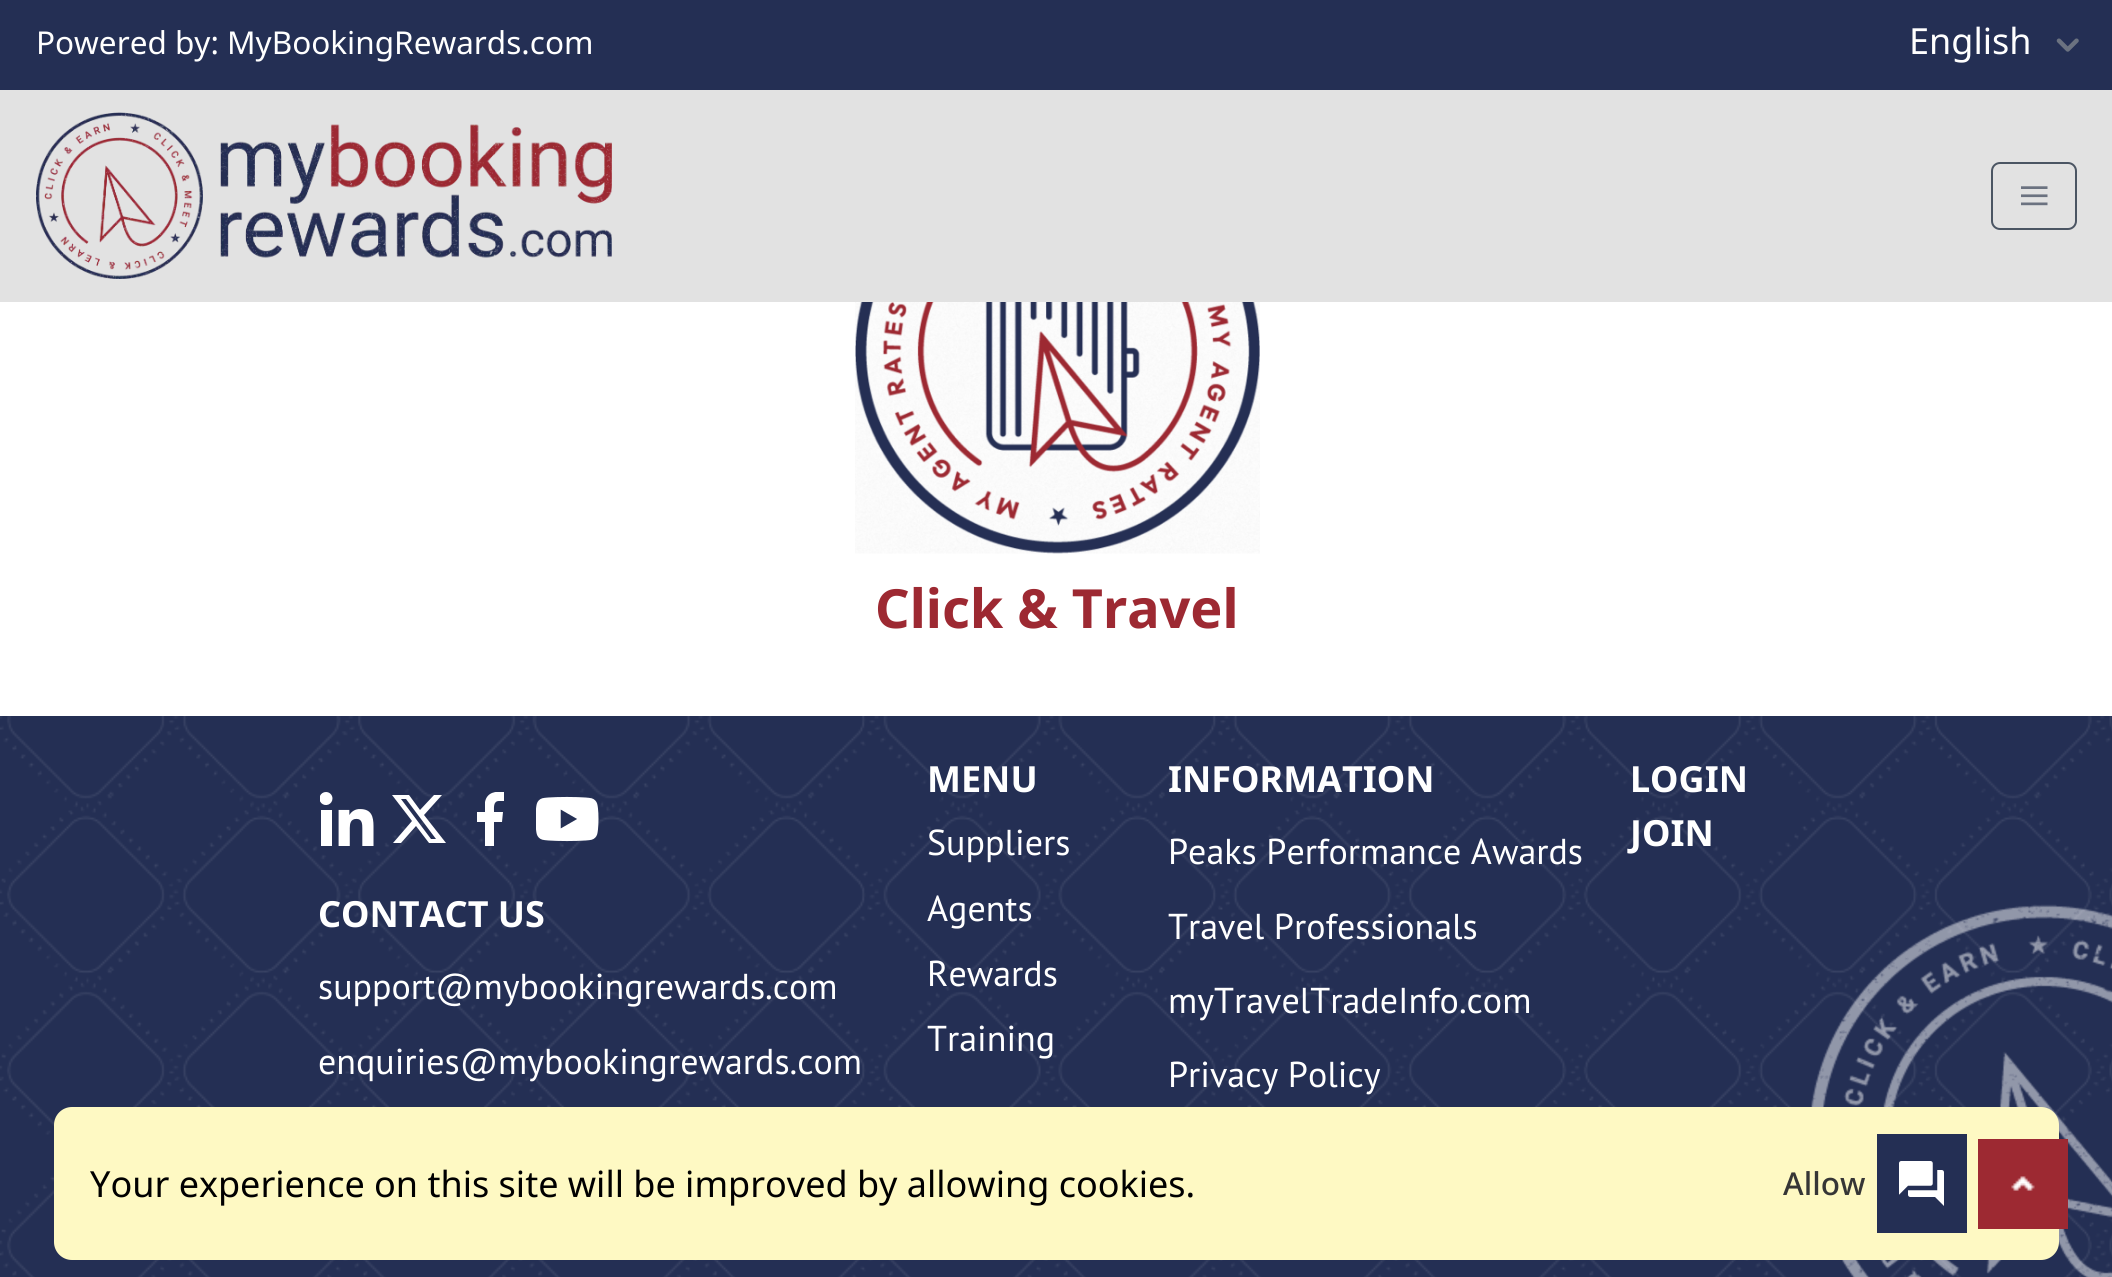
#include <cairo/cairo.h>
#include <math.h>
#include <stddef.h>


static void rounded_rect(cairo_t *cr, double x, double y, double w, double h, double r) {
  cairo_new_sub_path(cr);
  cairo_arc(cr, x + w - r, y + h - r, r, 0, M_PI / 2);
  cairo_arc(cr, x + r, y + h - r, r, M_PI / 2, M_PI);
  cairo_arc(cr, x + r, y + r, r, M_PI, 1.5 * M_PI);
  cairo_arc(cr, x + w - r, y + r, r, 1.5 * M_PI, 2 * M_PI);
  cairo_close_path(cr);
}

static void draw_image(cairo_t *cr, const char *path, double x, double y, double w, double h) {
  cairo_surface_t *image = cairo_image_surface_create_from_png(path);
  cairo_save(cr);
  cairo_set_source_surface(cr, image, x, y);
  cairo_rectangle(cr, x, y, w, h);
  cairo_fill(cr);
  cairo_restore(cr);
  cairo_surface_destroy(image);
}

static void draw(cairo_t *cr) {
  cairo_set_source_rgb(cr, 1, 1, 1);
  cairo_paint(cr);
  cairo_set_source_rgb(cr, 36 / 255.0, 47 / 255.0, 84 / 255.0);
  cairo_rectangle(cr, 0, 0, 2112, 90);
  cairo_fill(cr);
  draw_image(cr, "images/1.png", 2056, 38, 23, 14);
  cairo_set_source_rgb(cr, 226 / 255.0, 226 / 255.0, 226 / 255.0);
  cairo_rectangle(cr, 0, 90, 2112, 212);
  cairo_fill(cr);
  draw_image(cr, "images/2.png", 36, 112, 576, 167);
  rounded_rect(cr, 1992, 163, 84, 66, 8);
  cairo_set_source_rgb(cr, 75 / 255.0, 85 / 255.0, 99 / 255.0);
  cairo_stroke(cr);
  draw_image(cr, "images/3.png", 2021, 186, 27, 20);
  draw_image(cr, "images/4.png", 855, 302, 405, 252);
  cairo_set_source_rgb(cr, 36 / 255.0, 47 / 255.0, 84 / 255.0);
  cairo_rectangle(cr, 0, 716, 2112, 561);
  cairo_fill(cr);
  draw_image(cr, "images/5.png", 0, 716, 2112, 561);
  draw_image(cr, "images/6.png", 320, 792, 54, 54);
  cairo_set_source_rgb(cr, 1, 1, 1);
  cairo_new_path(cr);
  cairo_move_to(cr, 434, 795);
  cairo_line_to(cr, 442, 795);
  cairo_line_to(cr, 424, 815);
  cairo_line_to(cr, 446, 843);
  cairo_line_to(cr, 429, 843);
  cairo_line_to(cr, 416, 826);
  cairo_line_to(cr, 401, 843);
  cairo_line_to(cr, 393, 843);
  cairo_line_to(cr, 412, 821);
  cairo_line_to(cr, 392, 795);
  cairo_line_to(cr, 409, 795);
  cairo_line_to(cr, 420, 810);
  cairo_close_path(cr);
  cairo_move_to(cr, 431, 839);
  cairo_line_to(cr, 436, 839);
  cairo_line_to(cr, 406, 799);
  cairo_line_to(cr, 401, 799);
  cairo_close_path(cr);
  cairo_fill(cr);
  cairo_save(cr);
  cairo_rectangle(cr, 464, 792, 54, 54);
  cairo_clip(cr);
  cairo_new_path(cr);
  cairo_move_to(cr, 499, 801);
  cairo_line_to(cr, 504, 801);
  cairo_line_to(cr, 504, 792);
  cairo_curve_to(cr, 496, 791, 487, 792, 485, 802);
  cairo_line_to(cr, 485, 812);
  cairo_line_to(cr, 477, 812);
  cairo_line_to(cr, 477, 822);
  cairo_line_to(cr, 485, 822);
  cairo_line_to(cr, 485, 846);
  cairo_line_to(cr, 494, 846);
  cairo_line_to(cr, 494, 822);
  cairo_line_to(cr, 502, 822);
  cairo_line_to(cr, 503, 812);
  cairo_line_to(cr, 494, 812);
  cairo_curve_to(cr, 494, 808, 493, 801, 499, 801);
  cairo_close_path(cr);
  cairo_fill(cr);
  cairo_restore(cr);
  draw_image(cr, "images/7.png", 536, 796, 63, 46);
  draw_image(cr, "images/8.png", 1811, 904, 301, 373);
  cairo_set_source_rgb(cr, 254 / 255.0, 249 / 255.0, 195 / 255.0);
  rounded_rect(cr, 54, 1107, 2005, 153, 18);
  cairo_fill(cr);
  cairo_set_source_rgb(cr, 36 / 255.0, 47 / 255.0, 84 / 255.0);
  cairo_rectangle(cr, 1877, 1134, 90, 99);
  cairo_fill(cr);
  draw_image(cr, "images/9.png", 1899, 1161, 45, 45);
  cairo_set_source_rgb(cr, 157 / 255.0, 41 / 255.0, 50 / 255.0);
  cairo_rectangle(cr, 1978, 1139, 90, 90);
  cairo_fill(cr);
  draw_image(cr, "images/10.png", 2011, 1176, 24, 15);
  cairo_select_font_face(cr, "Noto Sans", CAIRO_FONT_SLANT_NORMAL, CAIRO_FONT_WEIGHT_NORMAL);
  cairo_set_font_size(cr, 31.5);
  cairo_set_source_rgb(cr, 1, 1, 1);
  cairo_move_to(cr, 36, 54);
  cairo_show_text(cr, "Powered by: MyBookingRewards.com");
  cairo_set_font_size(cr, 36);
  cairo_move_to(cr, 1909, 54);
  cairo_show_text(cr, "English");
  cairo_select_font_face(cr, "Noto Sans", CAIRO_FONT_SLANT_NORMAL, CAIRO_FONT_WEIGHT_BOLD);
  cairo_set_font_size(cr, 54);
  cairo_set_source_rgb(cr, 157 / 255.0, 41 / 255.0, 50 / 255.0);
  cairo_move_to(cr, 875, 628);
  cairo_show_text(cr, "Click & Travel");
  cairo_set_font_size(cr, 36);
  cairo_set_source_rgb(cr, 1, 1, 1);
  cairo_move_to(cr, 927, 792);
  cairo_show_text(cr, "MENU");
  cairo_select_font_face(cr, "PT Sans", CAIRO_FONT_SLANT_NORMAL, CAIRO_FONT_WEIGHT_NORMAL);
  cairo_move_to(cr, 927, 855);
  cairo_show_text(cr, "Suppliers");
  cairo_move_to(cr, 927, 921);
  cairo_show_text(cr, "Agents");
  cairo_move_to(cr, 927, 986);
  cairo_show_text(cr, "Rewards");
  cairo_move_to(cr, 927, 1051);
  cairo_show_text(cr, "Training");
  cairo_select_font_face(cr, "Noto Sans", CAIRO_FONT_SLANT_NORMAL, CAIRO_FONT_WEIGHT_BOLD);
  cairo_move_to(cr, 1168, 792);
  cairo_show_text(cr, "INFORMATION");
  cairo_select_font_face(cr, "PT Sans", CAIRO_FONT_SLANT_NORMAL, CAIRO_FONT_WEIGHT_NORMAL);
  cairo_move_to(cr, 1168, 864);
  cairo_show_text(cr, "Peaks Performance Awards");
  cairo_move_to(cr, 1168, 939);
  cairo_show_text(cr, "Travel Professionals");
  cairo_move_to(cr, 1168, 1013);
  cairo_show_text(cr, "myTravelTradeInfo.com");
  cairo_move_to(cr, 1168, 1087);
  cairo_show_text(cr, "Privacy Policy");
  cairo_select_font_face(cr, "Noto Sans", CAIRO_FONT_SLANT_NORMAL, CAIRO_FONT_WEIGHT_BOLD);
  cairo_move_to(cr, 1630, 792);
  cairo_show_text(cr, "LOGIN");
  cairo_move_to(cr, 1630, 846);
  cairo_show_text(cr, "JOIN");
  cairo_move_to(cr, 318, 927);
  cairo_show_text(cr, "CONTACT US");
  cairo_select_font_face(cr, "PT Sans", CAIRO_FONT_SLANT_NORMAL, CAIRO_FONT_WEIGHT_NORMAL);
  cairo_move_to(cr, 318, 999);
  cairo_show_text(cr, "support@mybookingrewards.com");
  cairo_move_to(cr, 318, 1074);
  cairo_show_text(cr, "enquiries@mybookingrewards.com");
  cairo_select_font_face(cr, "Noto Sans", CAIRO_FONT_SLANT_NORMAL, CAIRO_FONT_WEIGHT_NORMAL);
  cairo_set_source_rgb(cr, 0, 0, 0);
  cairo_move_to(cr, 90, 1197);
  cairo_show_text(cr, "Your experience on this site will be improved by allowing cookies.");
  cairo_select_font_face(cr, "Noto Sans Medium", CAIRO_FONT_SLANT_NORMAL, CAIRO_FONT_WEIGHT_NORMAL);
  cairo_set_font_size(cr, 31.5);
  cairo_set_source_rgb(cr, 54 / 255.0, 54 / 255.0, 54 / 255.0);
  cairo_move_to(cr, 1783, 1195);
  cairo_show_text(cr, "Allow");
}

int main(void) {
  cairo_surface_t *surface = cairo_image_surface_create(CAIRO_FORMAT_RGB24, 2112, 1277);
  cairo_t *cr = cairo_create(surface);
  cairo_font_options_t *options = cairo_font_options_create();
  cairo_font_options_set_hint_metrics(options, CAIRO_HINT_METRICS_OFF);
  cairo_font_options_set_hint_style(options, CAIRO_HINT_STYLE_NONE);
  cairo_set_font_options(cr, options);
  cairo_set_miter_limit(cr, 4);
  draw(cr);
  cairo_surface_write_to_png(surface, "out.png");
  cairo_font_options_destroy(options);
  cairo_destroy(cr);
  cairo_surface_destroy(surface);
  return 0;
}
